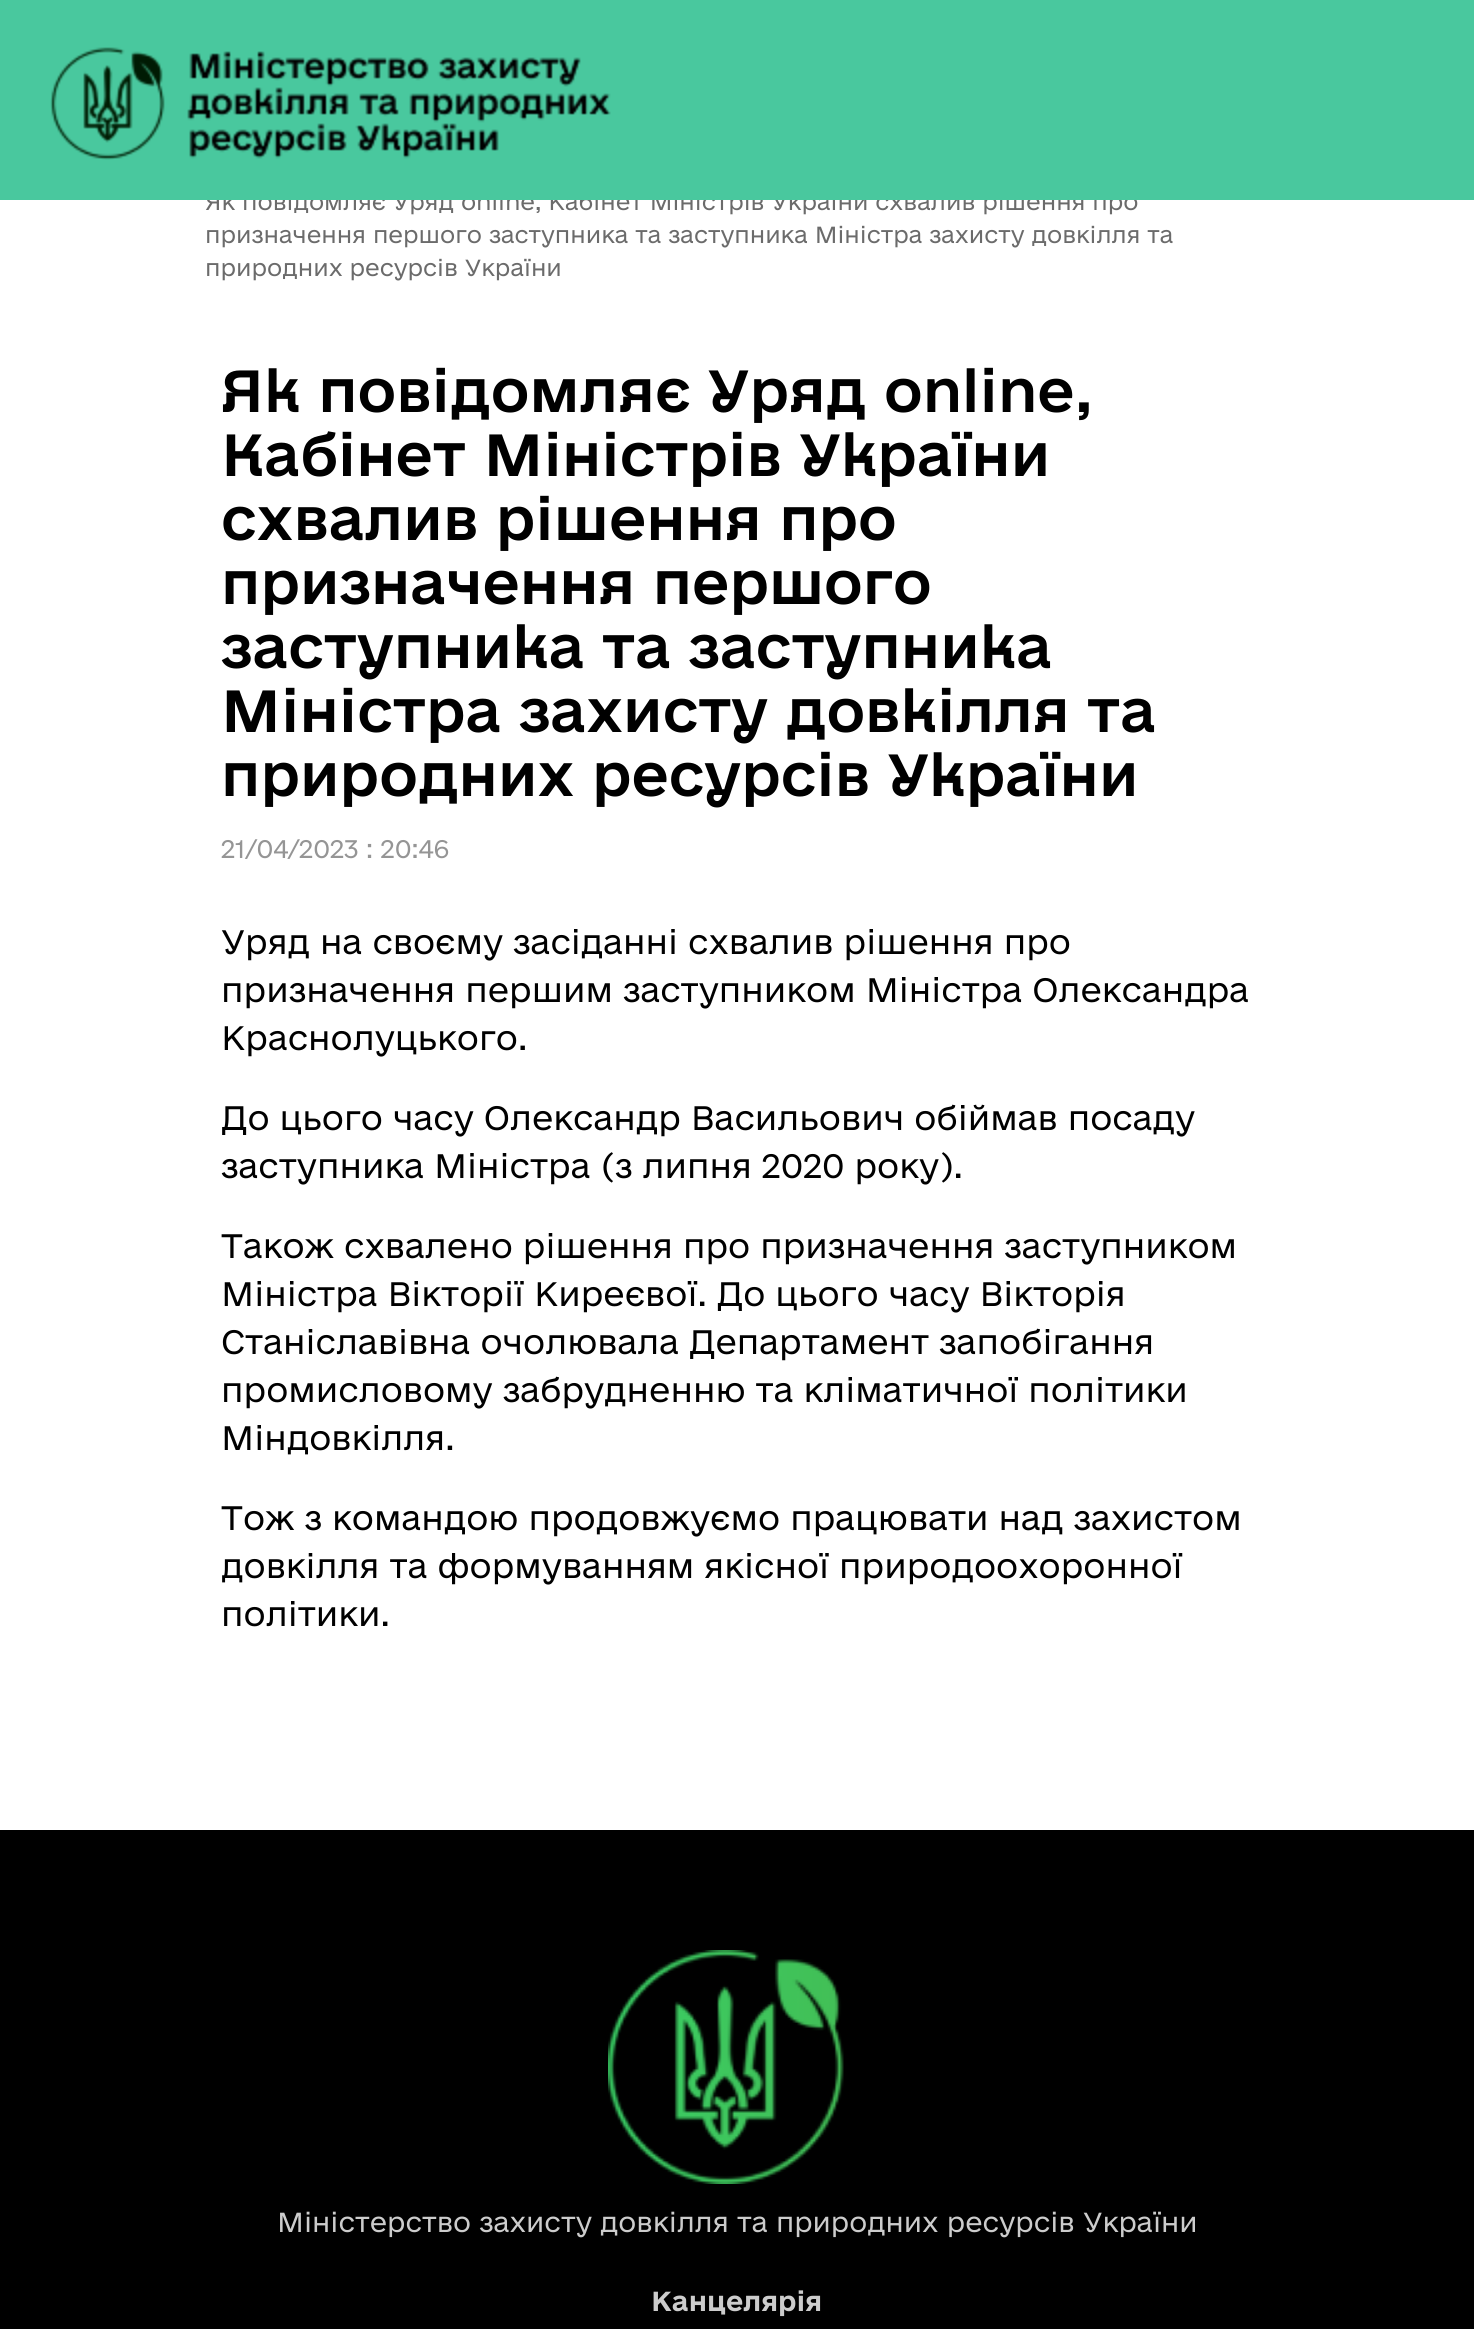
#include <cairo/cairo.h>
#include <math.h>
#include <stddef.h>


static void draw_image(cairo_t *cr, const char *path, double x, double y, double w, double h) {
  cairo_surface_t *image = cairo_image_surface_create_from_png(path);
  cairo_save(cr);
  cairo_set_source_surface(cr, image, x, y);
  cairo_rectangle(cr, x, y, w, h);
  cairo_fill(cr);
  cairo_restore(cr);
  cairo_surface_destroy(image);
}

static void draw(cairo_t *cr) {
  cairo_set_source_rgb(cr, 1, 1, 1);
  cairo_paint(cr);
  cairo_set_source_rgb(cr, 0, 0, 0);
  cairo_rectangle(cr, 0, 1830, 1474, 499);
  cairo_fill(cr);
  draw_image(cr, "images/2.png", 608, 1950, 236, 234);
  cairo_select_font_face(cr, "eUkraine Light", CAIRO_FONT_SLANT_NORMAL, CAIRO_FONT_WEIGHT_NORMAL);
  cairo_set_font_size(cr, 22);
  cairo_set_source_rgb(cr, 107 / 255.0, 107 / 255.0, 107 / 255.0);
  cairo_move_to(cr, 205, 210);
  cairo_show_text(cr, "Як повідомляє Уряд online, Кабінет Міністрів України схвалив рішення про");
  cairo_set_source_rgb(cr, 73 / 255.0, 200 / 255.0, 158 / 255.0);
  cairo_rectangle(cr, 0, 0, 1474, 200);
  cairo_fill(cr);
  draw_image(cr, "images/1.png", 50, 47, 561, 113);
  cairo_set_source_rgb(cr, 107 / 255.0, 107 / 255.0, 107 / 255.0);
  cairo_move_to(cr, 205, 243);
  cairo_show_text(cr, "призначення першого заступника та заступника Міністра захисту довкілля та");
  cairo_move_to(cr, 205, 276);
  cairo_show_text(cr, "природних ресурсів України");
  cairo_select_font_face(cr, "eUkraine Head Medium", CAIRO_FONT_SLANT_NORMAL, CAIRO_FONT_WEIGHT_NORMAL);
  cairo_set_font_size(cr, 56);
  cairo_set_source_rgb(cr, 0, 0, 0);
  cairo_move_to(cr, 221, 412);
  cairo_show_text(cr, "Як повідомляє Уряд online,");
  cairo_move_to(cr, 221, 476);
  cairo_show_text(cr, "Кабінет Міністрів України");
  cairo_move_to(cr, 221, 540);
  cairo_show_text(cr, "схвалив рішення про");
  cairo_move_to(cr, 221, 604);
  cairo_show_text(cr, "призначення першого");
  cairo_move_to(cr, 221, 668);
  cairo_show_text(cr, "заступника та заступника");
  cairo_move_to(cr, 221, 732);
  cairo_show_text(cr, "Міністра захисту довкілля та");
  cairo_move_to(cr, 221, 796);
  cairo_show_text(cr, "природних ресурсів України");
  cairo_select_font_face(cr, "eUkraine Light", CAIRO_FONT_SLANT_NORMAL, CAIRO_FONT_WEIGHT_NORMAL);
  cairo_set_font_size(cr, 24);
  cairo_set_source_rgb(cr, 149 / 255.0, 149 / 255.0, 149 / 255.0);
  cairo_move_to(cr, 221, 858);
  cairo_show_text(cr, "21/04/2023 : 20:46");
  cairo_set_font_size(cr, 32);
  cairo_set_source_rgb(cr, 0, 0, 0);
  cairo_move_to(cr, 221, 954);
  cairo_show_text(cr, "Уряд на своєму засіданні схвалив рішення про");
  cairo_move_to(cr, 221, 1002);
  cairo_show_text(cr, "призначення першим заступником Міністра Олександра");
  cairo_move_to(cr, 221, 1050);
  cairo_show_text(cr, "Краснолуцького.");
  cairo_move_to(cr, 221, 1130);
  cairo_show_text(cr, "До цього часу Олександр Васильович обіймав посаду");
  cairo_move_to(cr, 221, 1178);
  cairo_show_text(cr, "заступника Міністра (з липня 2020 року).");
  cairo_move_to(cr, 221, 1258);
  cairo_show_text(cr, "Також схвалено рішення про призначення заступником");
  cairo_move_to(cr, 221, 1306);
  cairo_show_text(cr, "Міністра Вікторії Киреєвої. До цього часу Вікторія");
  cairo_move_to(cr, 221, 1354);
  cairo_show_text(cr, "Станіславівна очолювала Департамент запобігання");
  cairo_move_to(cr, 221, 1402);
  cairo_show_text(cr, "промисловому забрудненню та кліматичної політики");
  cairo_move_to(cr, 221, 1450);
  cairo_show_text(cr, "Міндовкілля.");
  cairo_move_to(cr, 221, 1530);
  cairo_show_text(cr, "Тож з командою продовжуємо працювати над захистом");
  cairo_move_to(cr, 221, 1578);
  cairo_show_text(cr, "довкілля та формуванням якісної природоохоронної");
  cairo_move_to(cr, 221, 1626);
  cairo_show_text(cr, "політики.");
  cairo_set_font_size(cr, 26);
  cairo_set_source_rgb(cr, 204 / 255.0, 204 / 255.0, 204 / 255.0);
  cairo_move_to(cr, 277, 2232);
  cairo_show_text(cr, "Міністерство захисту довкілля та природних ресурсів України");
  cairo_select_font_face(cr, "eUkraine", CAIRO_FONT_SLANT_NORMAL, CAIRO_FONT_WEIGHT_BOLD);
  cairo_move_to(cr, 651, 2311);
  cairo_show_text(cr, "Канцелярія");
}

int main(void) {
  cairo_surface_t *surface = cairo_image_surface_create(CAIRO_FORMAT_RGB24, 1474, 2329);
  cairo_t *cr = cairo_create(surface);
  cairo_font_options_t *options = cairo_font_options_create();
  cairo_font_options_set_hint_metrics(options, CAIRO_HINT_METRICS_OFF);
  cairo_font_options_set_hint_style(options, CAIRO_HINT_STYLE_NONE);
  cairo_set_font_options(cr, options);
  cairo_set_miter_limit(cr, 4);
  draw(cr);
  cairo_surface_write_to_png(surface, "out.png");
  cairo_font_options_destroy(options);
  cairo_destroy(cr);
  cairo_surface_destroy(surface);
  return 0;
}
